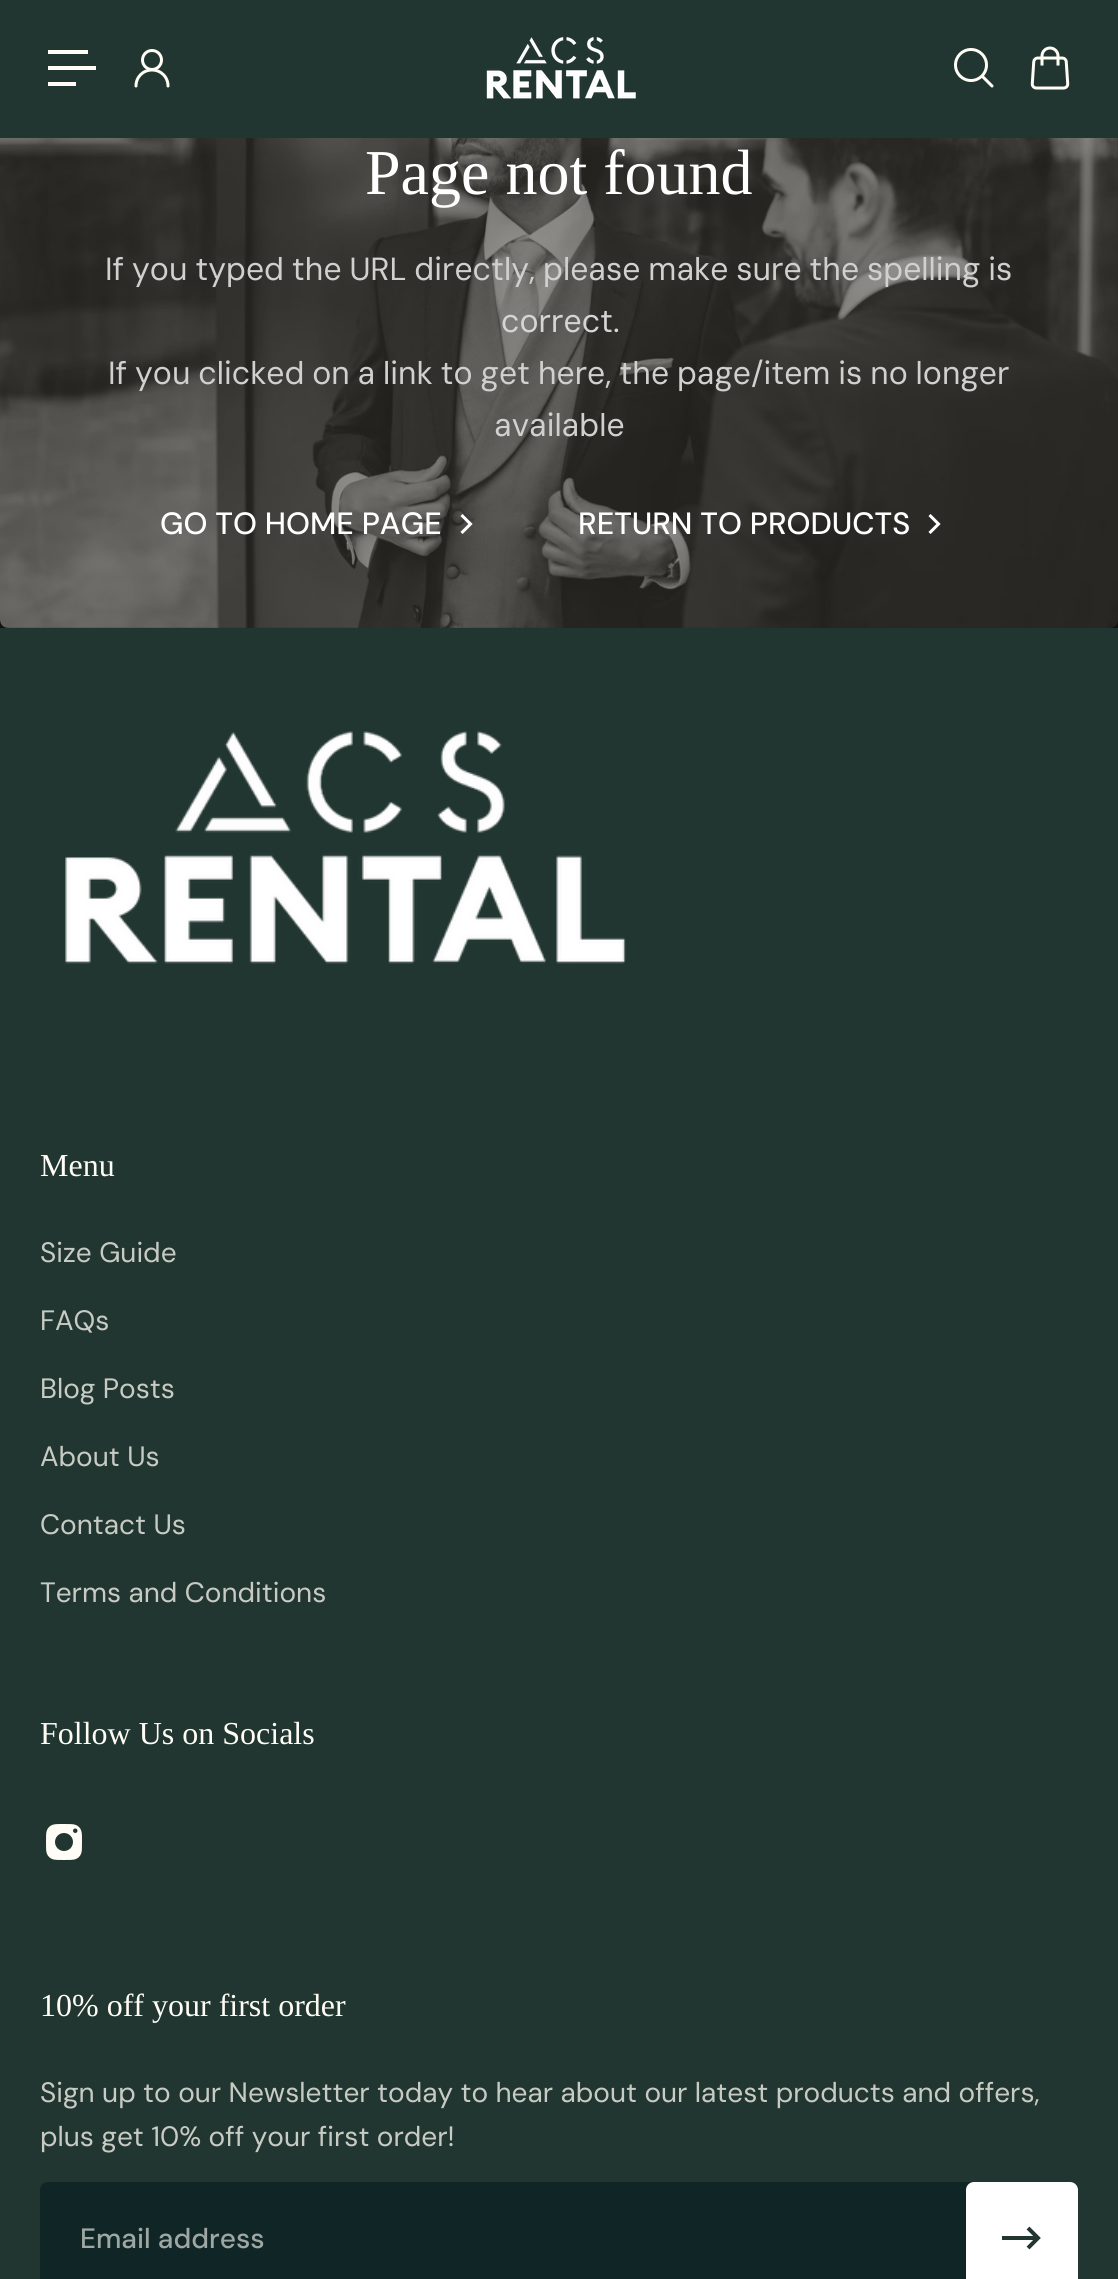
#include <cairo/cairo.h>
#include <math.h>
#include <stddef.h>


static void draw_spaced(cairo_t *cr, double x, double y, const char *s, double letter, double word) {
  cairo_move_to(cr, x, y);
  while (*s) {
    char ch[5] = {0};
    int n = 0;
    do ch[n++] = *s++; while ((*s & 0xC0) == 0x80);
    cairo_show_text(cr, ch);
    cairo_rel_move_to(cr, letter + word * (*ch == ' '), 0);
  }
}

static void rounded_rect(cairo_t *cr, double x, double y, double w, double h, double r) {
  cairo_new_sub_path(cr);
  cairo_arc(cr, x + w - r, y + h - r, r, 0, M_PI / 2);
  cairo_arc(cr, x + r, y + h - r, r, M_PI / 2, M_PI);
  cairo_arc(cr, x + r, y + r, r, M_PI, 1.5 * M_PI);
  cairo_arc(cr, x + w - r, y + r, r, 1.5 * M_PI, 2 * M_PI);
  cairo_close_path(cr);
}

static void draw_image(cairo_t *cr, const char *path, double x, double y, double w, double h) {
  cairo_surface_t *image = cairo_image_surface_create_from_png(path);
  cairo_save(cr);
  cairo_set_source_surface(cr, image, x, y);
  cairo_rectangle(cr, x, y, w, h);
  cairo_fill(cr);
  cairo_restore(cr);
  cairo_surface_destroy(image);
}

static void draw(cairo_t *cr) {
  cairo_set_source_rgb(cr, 18 / 255.0, 18 / 255.0, 18 / 255.0);
  cairo_paint(cr);
  draw_image(cr, "images/3.png", 0, 138, 1118, 490);
  cairo_set_source_rgba(cr, 59 / 255.0, 57 / 255.0, 51 / 255.0, 0.55);
  rounded_rect(cr, 0, -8, 1118, 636, 8);
  cairo_fill(cr);
  cairo_set_source_rgb(cr, 34 / 255.0, 54 / 255.0, 49 / 255.0);
  cairo_rectangle(cr, 0, 0, 1118, 138);
  cairo_fill(cr);
  cairo_set_source_rgb(cr, 1, 253 / 255.0, 245 / 255.0);
  cairo_rectangle(cr, 48, 50, 40, 4);
  cairo_fill(cr);
  cairo_rectangle(cr, 48, 66, 48, 4);
  cairo_fill(cr);
  cairo_rectangle(cr, 48, 82, 28, 4);
  cairo_fill(cr);
  cairo_arc(cr, 152, 60, 9.5, 0, 2 * M_PI);
  cairo_set_line_width(cr, 3);
  cairo_stroke(cr);
  cairo_new_path(cr);
  cairo_move_to(cr, 168, 86);
  cairo_curve_to(cr, 168, 77, 161, 70, 152, 70);
  cairo_curve_to(cr, 143, 70, 136, 77, 136, 86);
  cairo_set_line_cap(cr, CAIRO_LINE_CAP_ROUND);
  cairo_set_line_join(cr, CAIRO_LINE_JOIN_ROUND);
  cairo_stroke(cr);
  draw_image(cr, "images/1.png", 486, 37, 150, 62);
  cairo_arc(cr, 971, 65, 15.5, 0, 2 * M_PI);
  cairo_set_line_cap(cr, CAIRO_LINE_CAP_BUTT);
  cairo_set_line_join(cr, CAIRO_LINE_JOIN_MITER);
  cairo_stroke(cr);
  cairo_new_path(cr);
  cairo_move_to(cr, 982.5, 76.5);
  cairo_line_to(cr, 992, 86);
  cairo_set_line_cap(cr, CAIRO_LINE_CAP_ROUND);
  cairo_set_line_join(cr, CAIRO_LINE_JOIN_ROUND);
  cairo_stroke(cr);
  draw_image(cr, "images/2.png", 1030, 46, 40, 44);
  cairo_new_path(cr);
  cairo_move_to(cr, 461.5, 515);
  cairo_line_to(cr, 470.5, 524);
  cairo_line_to(cr, 461.5, 533);
  cairo_set_source_rgb(cr, 1, 1, 1);
  cairo_set_line_cap(cr, CAIRO_LINE_CAP_BUTT);
  cairo_set_line_join(cr, CAIRO_LINE_JOIN_MITER);
  cairo_stroke(cr);
  cairo_new_path(cr);
  cairo_move_to(cr, 929.5, 515);
  cairo_line_to(cr, 938.5, 524);
  cairo_line_to(cr, 929.5, 533);
  cairo_stroke(cr);
  cairo_set_source_rgb(cr, 34 / 255.0, 54 / 255.0, 49 / 255.0);
  cairo_rectangle(cr, 0, 628, 1118, 1651);
  cairo_fill(cr);
  draw_image(cr, "images/4.png", 65, 731, 561, 233);
  draw_image(cr, "images/5.png", 46, 1824, 36, 36);
  cairo_set_source_rgb(cr, 16 / 255.0, 38 / 255.0, 38 / 255.0);
  rounded_rect(cr, 41, 2183, 1036, 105, 7);
  cairo_fill_preserve(cr);
  cairo_set_line_width(cr, 2);
  cairo_stroke(cr);
  cairo_set_source_rgb(cr, 1, 1, 1);
  rounded_rect(cr, 966, 2182, 112, 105, 8);
  cairo_fill(cr);
  cairo_set_source_rgb(cr, 34 / 255.0, 54 / 255.0, 49 / 255.0);
  cairo_rectangle(cr, 1002, 2236, 36, 4);
  cairo_fill(cr);
  cairo_new_path(cr);
  cairo_move_to(cr, 1028, 2228);
  cairo_line_to(cr, 1038, 2238);
  cairo_line_to(cr, 1028, 2248);
  cairo_set_line_width(cr, 4);
  cairo_stroke(cr);
  cairo_select_font_face(cr, "Liberation Serif", CAIRO_FONT_SLANT_NORMAL, CAIRO_FONT_WEIGHT_NORMAL);
  cairo_set_font_size(cr, 64);
  cairo_set_source_rgb(cr, 1, 1, 1);
  cairo_move_to(cr, 365, 194);
  cairo_show_text(cr, "Page not found");
  cairo_select_font_face(cr, "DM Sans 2", CAIRO_FONT_SLANT_NORMAL, CAIRO_FONT_WEIGHT_NORMAL);
  cairo_set_font_size(cr, 32);
  cairo_set_source_rgb(cr, 208 / 255.0, 208 / 255.0, 207 / 255.0);
  draw_spaced(cr, 105, 280, "If you typed the URL directly, please make sure the spelling is", 0, -0.75);
  cairo_set_source_rgb(cr, 214 / 255.0, 213 / 255.0, 213 / 255.0);
  cairo_move_to(cr, 501, 332);
  cairo_show_text(cr, "correct.");
  cairo_set_source_rgb(cr, 208 / 255.0, 208 / 255.0, 207 / 255.0);
  draw_spaced(cr, 108, 384, "If you clicked on a link to get here, the page/item is no longer", 0, -0.75);
  cairo_move_to(cr, 494, 436);
  cairo_show_text(cr, "available");
  cairo_select_font_face(cr, "DM Sans 2 Medium", CAIRO_FONT_SLANT_NORMAL, CAIRO_FONT_WEIGHT_NORMAL);
  cairo_set_font_size(cr, 30.75);
  cairo_set_source_rgb(cr, 1, 1, 1);
  cairo_move_to(cr, 160, 534);
  cairo_show_text(cr, "GO TO HOME PAGE");
  cairo_move_to(cr, 578, 534);
  cairo_show_text(cr, "RETURN TO PRODUCTS");
  cairo_select_font_face(cr, "Liberation Serif", CAIRO_FONT_SLANT_NORMAL, CAIRO_FONT_WEIGHT_NORMAL);
  cairo_set_font_size(cr, 32);
  cairo_set_source_rgb(cr, 1, 253 / 255.0, 245 / 255.0);
  cairo_move_to(cr, 40, 1176);
  cairo_show_text(cr, "Menu");
  cairo_select_font_face(cr, "DM Sans", CAIRO_FONT_SLANT_NORMAL, CAIRO_FONT_WEIGHT_NORMAL);
  cairo_set_font_size(cr, 28);
  cairo_set_source_rgb(cr, 200 / 255.0, 203 / 255.0, 196 / 255.0);
  cairo_move_to(cr, 40, 1262);
  cairo_show_text(cr, "Size Guide");
  cairo_move_to(cr, 40, 1330);
  cairo_show_text(cr, "FAQs");
  cairo_move_to(cr, 40, 1398);
  cairo_show_text(cr, "Blog Posts");
  cairo_move_to(cr, 40, 1466);
  cairo_show_text(cr, "About Us");
  cairo_move_to(cr, 40, 1534);
  cairo_show_text(cr, "Contact Us");
  cairo_move_to(cr, 40, 1602);
  cairo_show_text(cr, "Terms and Conditions");
  cairo_select_font_face(cr, "Liberation Serif", CAIRO_FONT_SLANT_NORMAL, CAIRO_FONT_WEIGHT_NORMAL);
  cairo_set_font_size(cr, 32);
  cairo_set_source_rgb(cr, 1, 253 / 255.0, 245 / 255.0);
  cairo_move_to(cr, 40, 1744);
  cairo_show_text(cr, "Follow Us on Socials");
  cairo_move_to(cr, 40, 2016);
  cairo_show_text(cr, "10% off your first order");
  cairo_select_font_face(cr, "DM Sans", CAIRO_FONT_SLANT_NORMAL, CAIRO_FONT_WEIGHT_NORMAL);
  cairo_set_font_size(cr, 28);
  cairo_set_source_rgb(cr, 200 / 255.0, 203 / 255.0, 196 / 255.0);
  cairo_move_to(cr, 40, 2102);
  cairo_show_text(cr, "Sign up to our Newsletter today to hear about our latest products and offers,");
  cairo_move_to(cr, 40, 2146);
  cairo_show_text(cr, "plus get 10% off your first order!");
  cairo_select_font_face(cr, "DM Sans Medium", CAIRO_FONT_SLANT_NORMAL, CAIRO_FONT_WEIGHT_NORMAL);
  cairo_set_source_rgb(cr, 159 / 255.0, 167 / 255.0, 162 / 255.0);
  cairo_move_to(cr, 80, 2248);
  cairo_show_text(cr, "Email address");
}

int main(void) {
  cairo_surface_t *surface = cairo_image_surface_create(CAIRO_FORMAT_RGB24, 1118, 2279);
  cairo_t *cr = cairo_create(surface);
  cairo_font_options_t *options = cairo_font_options_create();
  cairo_font_options_set_hint_metrics(options, CAIRO_HINT_METRICS_OFF);
  cairo_font_options_set_hint_style(options, CAIRO_HINT_STYLE_NONE);
  cairo_set_font_options(cr, options);
  cairo_set_miter_limit(cr, 4);
  draw(cr);
  cairo_surface_write_to_png(surface, "out.png");
  cairo_font_options_destroy(options);
  cairo_destroy(cr);
  cairo_surface_destroy(surface);
  return 0;
}
